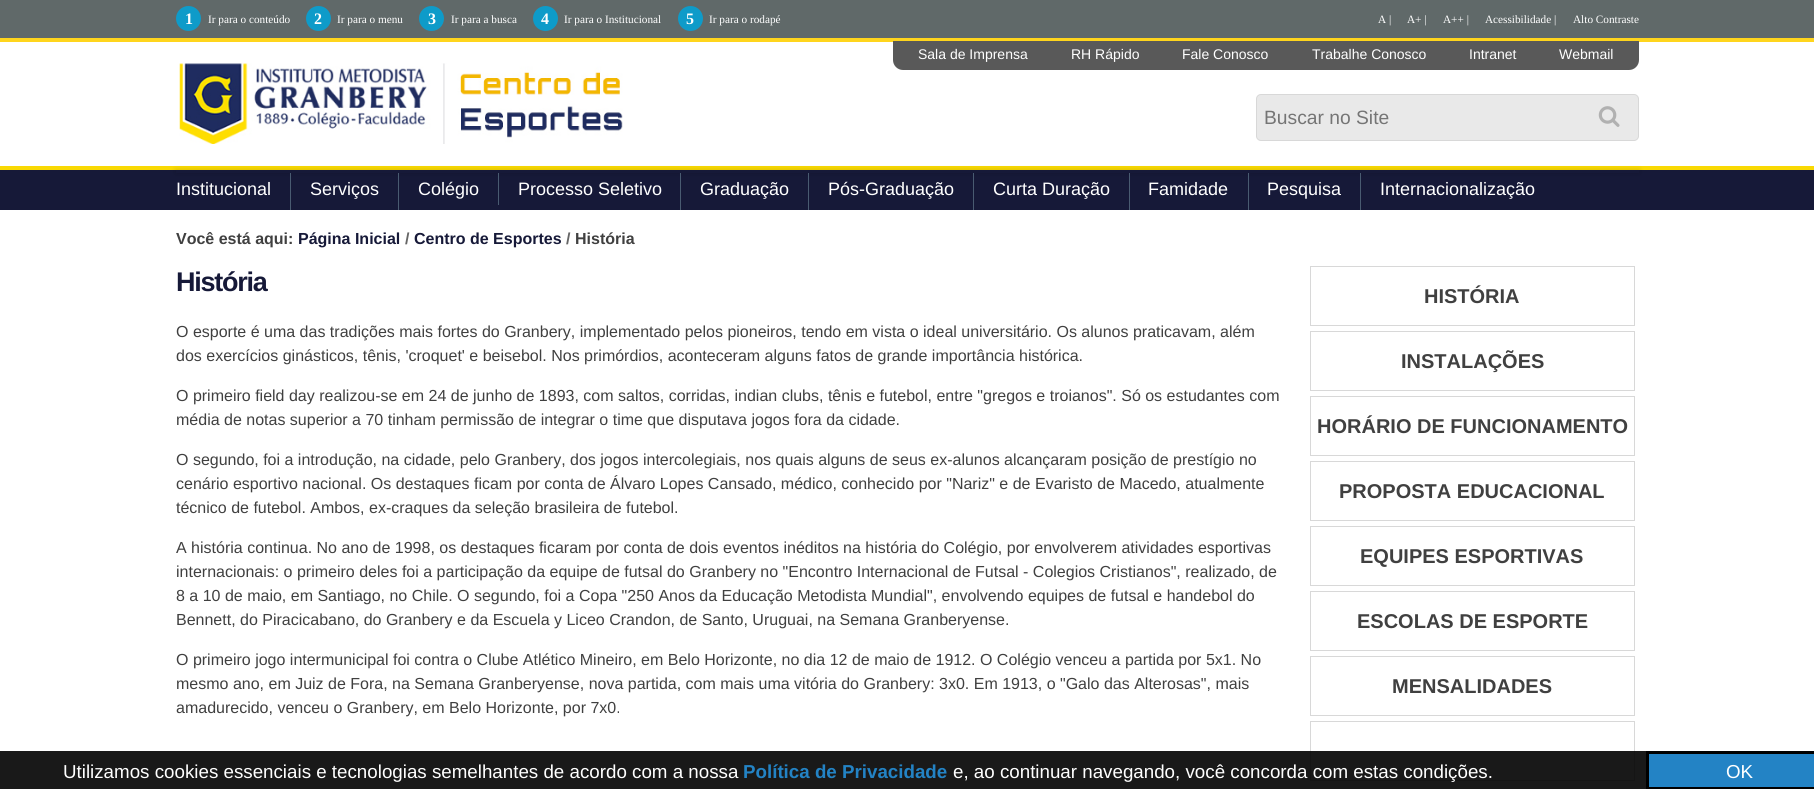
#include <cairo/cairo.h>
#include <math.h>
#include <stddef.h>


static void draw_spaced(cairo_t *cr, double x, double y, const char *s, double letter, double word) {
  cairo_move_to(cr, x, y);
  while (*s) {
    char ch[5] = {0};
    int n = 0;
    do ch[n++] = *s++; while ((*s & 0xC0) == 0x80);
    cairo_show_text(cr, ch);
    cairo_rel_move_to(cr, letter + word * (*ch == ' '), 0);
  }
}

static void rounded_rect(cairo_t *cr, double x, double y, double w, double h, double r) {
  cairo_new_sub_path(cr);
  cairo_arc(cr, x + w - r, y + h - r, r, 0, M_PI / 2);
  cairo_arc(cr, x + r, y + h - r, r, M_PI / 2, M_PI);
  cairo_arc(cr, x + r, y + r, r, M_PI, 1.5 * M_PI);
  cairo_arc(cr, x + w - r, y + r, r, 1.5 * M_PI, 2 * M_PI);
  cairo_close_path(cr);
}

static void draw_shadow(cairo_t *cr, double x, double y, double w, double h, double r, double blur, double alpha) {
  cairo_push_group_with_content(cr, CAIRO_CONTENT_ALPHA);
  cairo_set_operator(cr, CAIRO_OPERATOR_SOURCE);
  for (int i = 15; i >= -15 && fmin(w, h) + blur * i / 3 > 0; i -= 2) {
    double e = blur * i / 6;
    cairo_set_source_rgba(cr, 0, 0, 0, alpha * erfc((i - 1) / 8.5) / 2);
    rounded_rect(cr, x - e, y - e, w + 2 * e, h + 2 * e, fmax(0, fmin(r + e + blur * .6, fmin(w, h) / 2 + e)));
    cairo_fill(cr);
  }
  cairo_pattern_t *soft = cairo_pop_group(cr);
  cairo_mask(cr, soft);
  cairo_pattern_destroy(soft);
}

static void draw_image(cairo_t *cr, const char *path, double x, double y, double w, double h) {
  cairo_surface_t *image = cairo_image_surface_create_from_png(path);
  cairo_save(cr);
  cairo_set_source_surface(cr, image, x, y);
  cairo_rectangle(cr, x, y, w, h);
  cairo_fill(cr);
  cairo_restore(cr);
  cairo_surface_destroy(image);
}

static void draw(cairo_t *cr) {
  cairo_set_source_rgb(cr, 1, 1, 1);
  cairo_paint(cr);
  cairo_set_source_rgb(cr, 96 / 255.0, 105 / 255.0, 105 / 255.0);
  cairo_rectangle(cr, 0, 0, 1814, 38);
  cairo_fill(cr);
  cairo_set_source_rgb(cr, 1, 213 / 255.0, 29 / 255.0);
  cairo_rectangle(cr, 0, 38, 1814, 4);
  cairo_fill(cr);
  cairo_set_source_rgb(cr, 14 / 255.0, 155 / 255.0, 201 / 255.0);
  cairo_arc(cr, 188.5, 18.5, 12.5, 0, 2 * M_PI);
  cairo_fill(cr);
  cairo_arc(cr, 318.5, 18.5, 12.5, 0, 2 * M_PI);
  cairo_fill(cr);
  cairo_arc(cr, 431.5, 18.5, 12.5, 0, 2 * M_PI);
  cairo_fill(cr);
  cairo_arc(cr, 545.5, 18.5, 12.5, 0, 2 * M_PI);
  cairo_fill(cr);
  cairo_arc(cr, 690.5, 18.5, 12.5, 0, 2 * M_PI);
  cairo_fill(cr);
  cairo_set_source_rgb(cr, 89 / 255.0, 89 / 255.0, 89 / 255.0);
  cairo_new_path(cr);
  cairo_move_to(cr, 893, 41);
  cairo_line_to(cr, 1639, 41);
  cairo_line_to(cr, 1639, 60);
  cairo_curve_to(cr, 1639, 65.5, 1634.5, 70, 1629, 70);
  cairo_line_to(cr, 903, 70);
  cairo_curve_to(cr, 897.5, 70, 893, 65.5, 893, 60);
  cairo_close_path(cr);
  cairo_fill(cr);
  draw_image(cr, "images/1.png", 179, 63, 444, 81);
  cairo_set_source_rgb(cr, 233 / 255.0, 233 / 255.0, 233 / 255.0);
  rounded_rect(cr, 1256.5, 94.5, 382, 46, 4.5);
  cairo_fill_preserve(cr);
  cairo_set_source_rgb(cr, 216 / 255.0, 216 / 255.0, 216 / 255.0);
  cairo_set_line_width(cr, 1);
  cairo_stroke(cr);
  draw_image(cr, "images/2.png", 1598, 106, 22, 21);
  cairo_set_source_rgb(cr, 22 / 255.0, 25 / 255.0, 56 / 255.0);
  cairo_rectangle(cr, 0, 170, 1814, 40);
  cairo_fill(cr);
  cairo_set_source_rgb(cr, 249 / 255.0, 217 / 255.0, 3 / 255.0);
  cairo_rectangle(cr, 0, 166, 1814, 4);
  cairo_fill(cr);
  cairo_save(cr);
  cairo_set_fill_rule(cr, CAIRO_FILL_RULE_EVEN_ODD);
  cairo_new_path(cr);
  cairo_move_to(cr, 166, 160);
  cairo_line_to(cr, 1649, 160);
  cairo_line_to(cr, 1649, 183);
  cairo_line_to(cr, 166, 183);
  cairo_close_path(cr);
  cairo_move_to(cr, 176, 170);
  cairo_line_to(cr, 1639, 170);
  cairo_line_to(cr, 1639, 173);
  cairo_line_to(cr, 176, 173);
  cairo_close_path(cr);
  cairo_clip(cr);
  cairo_set_source_rgb(cr, 0, 0, 0);
  draw_shadow(cr, 176, 170, 1463, 3, 0, 3, 0.15);
  cairo_restore(cr);
  cairo_set_source_rgb(cr, 73 / 255.0, 91 / 255.0, 113 / 255.0);
  cairo_rectangle(cr, 290, 173, 1, 37);
  cairo_fill(cr);
  cairo_rectangle(cr, 398, 173, 1, 37);
  cairo_fill(cr);
  cairo_rectangle(cr, 498, 173, 1, 32);
  cairo_fill(cr);
  cairo_rectangle(cr, 680, 173, 1, 37);
  cairo_fill(cr);
  cairo_rectangle(cr, 808, 173, 1, 37);
  cairo_fill(cr);
  cairo_rectangle(cr, 973, 173, 1, 37);
  cairo_fill(cr);
  cairo_rectangle(cr, 1129, 173, 1, 37);
  cairo_fill(cr);
  cairo_rectangle(cr, 1248, 173, 1, 37);
  cairo_fill(cr);
  cairo_rectangle(cr, 1360, 173, 1, 37);
  cairo_fill(cr);
  cairo_rectangle(cr, 1310.5, 266.5, 324, 59);
  cairo_set_source_rgb(cr, 216 / 255.0, 216 / 255.0, 216 / 255.0);
  cairo_stroke(cr);
  cairo_rectangle(cr, 1310.5, 331.5, 324, 59);
  cairo_stroke(cr);
  cairo_rectangle(cr, 1310.5, 396.5, 324, 59);
  cairo_stroke(cr);
  cairo_rectangle(cr, 1310.5, 461.5, 324, 59);
  cairo_stroke(cr);
  cairo_rectangle(cr, 1310.5, 526.5, 324, 59);
  cairo_stroke(cr);
  cairo_rectangle(cr, 1310.5, 591.5, 324, 59);
  cairo_stroke(cr);
  cairo_rectangle(cr, 1310.5, 656.5, 324, 59);
  cairo_stroke(cr);
  cairo_rectangle(cr, 1310.5, 721.5, 324, 59);
  cairo_stroke(cr);
  cairo_set_source_rgba(cr, 0, 0, 0, 0.9);
  cairo_rectangle(cr, 0, 751, 1646, 38);
  cairo_fill(cr);
  cairo_set_source_rgb(cr, 35 / 255.0, 131 / 255.0, 197 / 255.0);
  cairo_rectangle(cr, 1647.5, 752.5, 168, 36);
  cairo_fill_preserve(cr);
  cairo_set_source_rgb(cr, 0, 0, 0);
  cairo_set_line_width(cr, 3);
  cairo_stroke(cr);
  cairo_select_font_face(cr, "Liberation Serif", CAIRO_FONT_SLANT_NORMAL, CAIRO_FONT_WEIGHT_BOLD);
  cairo_set_font_size(cr, 16);
  cairo_set_source_rgb(cr, 1, 1, 1);
  cairo_move_to(cr, 185, 24);
  cairo_show_text(cr, "1");
  cairo_select_font_face(cr, "Liberation Serif", CAIRO_FONT_SLANT_NORMAL, CAIRO_FONT_WEIGHT_NORMAL);
  cairo_set_font_size(cr, 11.25);
  cairo_move_to(cr, 208, 23);
  cairo_show_text(cr, "Ir para o conteúdo");
  cairo_select_font_face(cr, "Liberation Serif", CAIRO_FONT_SLANT_NORMAL, CAIRO_FONT_WEIGHT_BOLD);
  cairo_set_font_size(cr, 16);
  cairo_move_to(cr, 314, 24);
  cairo_show_text(cr, "2");
  cairo_select_font_face(cr, "Liberation Serif", CAIRO_FONT_SLANT_NORMAL, CAIRO_FONT_WEIGHT_NORMAL);
  cairo_set_font_size(cr, 11.25);
  cairo_move_to(cr, 337, 23);
  cairo_show_text(cr, "Ir para o menu");
  cairo_select_font_face(cr, "Liberation Serif", CAIRO_FONT_SLANT_NORMAL, CAIRO_FONT_WEIGHT_BOLD);
  cairo_set_font_size(cr, 16);
  cairo_move_to(cr, 428, 24);
  cairo_show_text(cr, "3");
  cairo_select_font_face(cr, "Liberation Serif", CAIRO_FONT_SLANT_NORMAL, CAIRO_FONT_WEIGHT_NORMAL);
  cairo_set_font_size(cr, 11.25);
  cairo_move_to(cr, 451, 23);
  cairo_show_text(cr, "Ir para a busca");
  cairo_select_font_face(cr, "Liberation Serif", CAIRO_FONT_SLANT_NORMAL, CAIRO_FONT_WEIGHT_BOLD);
  cairo_set_font_size(cr, 16);
  cairo_move_to(cr, 541, 24);
  cairo_show_text(cr, "4");
  cairo_select_font_face(cr, "Liberation Serif", CAIRO_FONT_SLANT_NORMAL, CAIRO_FONT_WEIGHT_NORMAL);
  cairo_set_font_size(cr, 11.25);
  cairo_move_to(cr, 564, 23);
  cairo_show_text(cr, "Ir para o Institucional");
  cairo_select_font_face(cr, "Liberation Serif", CAIRO_FONT_SLANT_NORMAL, CAIRO_FONT_WEIGHT_BOLD);
  cairo_set_font_size(cr, 16);
  cairo_move_to(cr, 686, 24);
  cairo_show_text(cr, "5");
  cairo_select_font_face(cr, "Liberation Serif", CAIRO_FONT_SLANT_NORMAL, CAIRO_FONT_WEIGHT_NORMAL);
  cairo_set_font_size(cr, 11.25);
  cairo_move_to(cr, 709, 23);
  cairo_show_text(cr, "Ir para o rodapé");
  cairo_move_to(cr, 1378, 23);
  cairo_show_text(cr, "A |");
  cairo_move_to(cr, 1407, 23);
  cairo_show_text(cr, "A+ |");
  cairo_move_to(cr, 1443, 23);
  cairo_show_text(cr, "A++ |");
  cairo_move_to(cr, 1485, 23);
  cairo_show_text(cr, "Acessibilidade |");
  cairo_move_to(cr, 1573, 23);
  cairo_show_text(cr, "Alto Contraste");
  cairo_select_font_face(cr, "Liberation Sans", CAIRO_FONT_SLANT_NORMAL, CAIRO_FONT_WEIGHT_NORMAL);
  cairo_set_font_size(cr, 14);
  cairo_move_to(cr, 918, 59);
  cairo_show_text(cr, "Sala de Imprensa");
  cairo_move_to(cr, 1071, 59);
  cairo_show_text(cr, "RH Rápido");
  cairo_move_to(cr, 1182, 59);
  cairo_show_text(cr, "Fale Conosco");
  cairo_move_to(cr, 1312, 59);
  cairo_show_text(cr, "Trabalhe Conosco");
  cairo_move_to(cr, 1469, 59);
  cairo_show_text(cr, "Intranet");
  cairo_move_to(cr, 1559, 59);
  cairo_show_text(cr, "Webmail");
  cairo_set_font_size(cr, 19.25);
  cairo_set_source_rgb(cr, 117 / 255.0, 117 / 255.0, 117 / 255.0);
  cairo_move_to(cr, 1264, 124);
  cairo_show_text(cr, "Buscar no Site");
  cairo_set_font_size(cr, 18);
  cairo_set_source_rgb(cr, 1, 1, 1);
  cairo_move_to(cr, 176, 195);
  cairo_show_text(cr, "Institucional");
  cairo_move_to(cr, 310, 195);
  cairo_show_text(cr, "Serviços");
  cairo_move_to(cr, 418, 195);
  cairo_show_text(cr, "Colégio");
  cairo_move_to(cr, 518, 195);
  cairo_show_text(cr, "Processo Seletivo");
  cairo_move_to(cr, 700, 195);
  cairo_show_text(cr, "Graduação");
  cairo_move_to(cr, 828, 195);
  cairo_show_text(cr, "Pós-Graduação");
  cairo_move_to(cr, 993, 195);
  cairo_show_text(cr, "Curta Duração");
  cairo_move_to(cr, 1148, 195);
  cairo_show_text(cr, "Famidade");
  cairo_move_to(cr, 1267, 195);
  cairo_show_text(cr, "Pesquisa");
  cairo_move_to(cr, 1380, 195);
  cairo_show_text(cr, "Internacionalização");
  cairo_select_font_face(cr, "Liberation Sans", CAIRO_FONT_SLANT_NORMAL, CAIRO_FONT_WEIGHT_BOLD);
  cairo_set_font_size(cr, 16);
  cairo_set_source_rgb(cr, 64 / 255.0, 64 / 255.0, 64 / 255.0);
  cairo_move_to(cr, 176, 244);
  cairo_show_text(cr, "Você está aqui:");
  cairo_set_source_rgb(cr, 22 / 255.0, 25 / 255.0, 56 / 255.0);
  cairo_move_to(cr, 298, 244);
  cairo_show_text(cr, "Página Inicial");
  cairo_set_source_rgb(cr, 102 / 255.0, 102 / 255.0, 102 / 255.0);
  cairo_move_to(cr, 405, 244);
  cairo_show_text(cr, "/");
  cairo_set_source_rgb(cr, 22 / 255.0, 25 / 255.0, 56 / 255.0);
  cairo_move_to(cr, 414, 244);
  cairo_show_text(cr, "Centro de Esportes");
  cairo_set_source_rgb(cr, 102 / 255.0, 102 / 255.0, 102 / 255.0);
  cairo_move_to(cr, 566, 244);
  cairo_show_text(cr, "/");
  cairo_set_source_rgb(cr, 64 / 255.0, 64 / 255.0, 64 / 255.0);
  cairo_move_to(cr, 575, 244);
  cairo_show_text(cr, "História");
  cairo_set_font_size(cr, 27);
  cairo_set_source_rgb(cr, 22 / 255.0, 25 / 255.0, 56 / 255.0);
  draw_spaced(cr, 176, 291, "História", -1.25, 0);
  cairo_select_font_face(cr, "Liberation Sans", CAIRO_FONT_SLANT_NORMAL, CAIRO_FONT_WEIGHT_NORMAL);
  cairo_set_font_size(cr, 16);
  cairo_set_source_rgb(cr, 64 / 255.0, 64 / 255.0, 64 / 255.0);
  cairo_move_to(cr, 176, 337);
  cairo_show_text(cr, "O esporte é uma das tradições mais fortes do Granbery, implementado pelos pioneiros, tendo em vista o ideal universitário. Os alunos praticavam, além");
  cairo_move_to(cr, 176, 361);
  cairo_show_text(cr, "dos exercícios ginásticos, tênis, 'croquet' e beisebol. Nos primórdios, aconteceram alguns fatos de grande importância histórica.");
  cairo_move_to(cr, 176, 401);
  cairo_show_text(cr, "O primeiro field day realizou-se em 24 de junho de 1893, com saltos, corridas, indian clubs, tênis e futebol, entre \"gregos e troianos\". Só os estudantes com");
  cairo_move_to(cr, 176, 425);
  cairo_show_text(cr, "média de notas superior a 70 tinham permissão de integrar o time que disputava jogos fora da cidade.");
  cairo_move_to(cr, 176, 465);
  cairo_show_text(cr, "O segundo, foi a introdução, na cidade, pelo Granbery, dos jogos intercolegiais, nos quais alguns de seus ex-alunos alcançaram posição de prestígio no");
  cairo_move_to(cr, 176, 489);
  cairo_show_text(cr, "cenário esportivo nacional. Os destaques ficam por conta de Álvaro Lopes Cansado, médico, conhecido por \"Nariz\" e de Evaristo de Macedo, atualmente");
  cairo_move_to(cr, 176, 513);
  cairo_show_text(cr, "técnico de futebol. Ambos, ex-craques da seleção brasileira de futebol.");
  cairo_move_to(cr, 176, 553);
  cairo_show_text(cr, "A história continua. No ano de 1998, os destaques ficaram por conta de dois eventos inéditos na história do Colégio, por envolverem atividades esportivas");
  cairo_move_to(cr, 176, 577);
  cairo_show_text(cr, "internacionais: o primeiro deles foi a participação da equipe de futsal do Granbery no \"Encontro Internacional de Futsal - Colegios Cristianos\", realizado, de");
  cairo_move_to(cr, 176, 601);
  cairo_show_text(cr, "8 a 10 de maio, em Santiago, no Chile. O segundo, foi a Copa \"250 Anos da Educação Metodista Mundial\", envolvendo equipes de futsal e handebol do");
  cairo_move_to(cr, 176, 625);
  cairo_show_text(cr, "Bennett, do Piracicabano, do Granbery e da Escuela y Liceo Crandon, de Santo, Uruguai, na Semana Granberyense.");
  cairo_move_to(cr, 176, 665);
  cairo_show_text(cr, "O primeiro jogo intermunicipal foi contra o Clube Atlético Mineiro, em Belo Horizonte, no dia 12 de maio de 1912. O Colégio venceu a partida por 5x1. No");
  cairo_move_to(cr, 176, 689);
  cairo_show_text(cr, "mesmo ano, em Juiz de Fora, na Semana Granberyense, nova partida, com mais uma vitória do Granbery: 3x0. Em 1913, o \"Galo das Alterosas\", mais");
  cairo_move_to(cr, 176, 713);
  cairo_show_text(cr, "amadurecido, venceu o Granbery, em Belo Horizonte, por 7x0.");
  cairo_select_font_face(cr, "Liberation Sans", CAIRO_FONT_SLANT_NORMAL, CAIRO_FONT_WEIGHT_BOLD);
  cairo_set_font_size(cr, 20);
  cairo_move_to(cr, 1424, 303);
  cairo_show_text(cr, "HISTÓRIA");
  cairo_move_to(cr, 1401, 368);
  cairo_show_text(cr, "INSTALAÇÕES");
  cairo_move_to(cr, 1317, 433);
  cairo_show_text(cr, "HORÁRIO DE FUNCIONAMENTO");
  cairo_move_to(cr, 1339, 498);
  cairo_show_text(cr, "PROPOSTA EDUCACIONAL");
  cairo_move_to(cr, 1360, 563);
  cairo_show_text(cr, "EQUIPES ESPORTIVAS");
  cairo_move_to(cr, 1357, 628);
  cairo_show_text(cr, "ESCOLAS DE ESPORTE");
  cairo_move_to(cr, 1392, 693);
  cairo_show_text(cr, "MENSALIDADES");
  cairo_select_font_face(cr, "Liberation Sans", CAIRO_FONT_SLANT_NORMAL, CAIRO_FONT_WEIGHT_NORMAL);
  cairo_set_font_size(cr, 18.75);
  cairo_set_source_rgb(cr, 1, 1, 1);
  cairo_move_to(cr, 63, 778);
  cairo_show_text(cr, "Utilizamos cookies essenciais e tecnologias semelhantes de acordo com a nossa");
  cairo_select_font_face(cr, "Liberation Sans", CAIRO_FONT_SLANT_NORMAL, CAIRO_FONT_WEIGHT_BOLD);
  cairo_set_source_rgb(cr, 35 / 255.0, 131 / 255.0, 197 / 255.0);
  cairo_move_to(cr, 743, 778);
  cairo_show_text(cr, "Política de Privacidade");
  cairo_select_font_face(cr, "Liberation Sans", CAIRO_FONT_SLANT_NORMAL, CAIRO_FONT_WEIGHT_NORMAL);
  cairo_set_source_rgb(cr, 1, 1, 1);
  cairo_move_to(cr, 953, 778);
  cairo_show_text(cr, "e, ao continuar navegando, você concorda com estas condições.");
  cairo_move_to(cr, 1726, 778);
  cairo_show_text(cr, "OK");
}

int main(void) {
  cairo_surface_t *surface = cairo_image_surface_create(CAIRO_FORMAT_RGB24, 1814, 789);
  cairo_t *cr = cairo_create(surface);
  cairo_font_options_t *options = cairo_font_options_create();
  cairo_font_options_set_hint_metrics(options, CAIRO_HINT_METRICS_OFF);
  cairo_font_options_set_hint_style(options, CAIRO_HINT_STYLE_NONE);
  cairo_set_font_options(cr, options);
  cairo_set_miter_limit(cr, 4);
  draw(cr);
  cairo_surface_write_to_png(surface, "out.png");
  cairo_font_options_destroy(options);
  cairo_destroy(cr);
  cairo_surface_destroy(surface);
  return 0;
}
